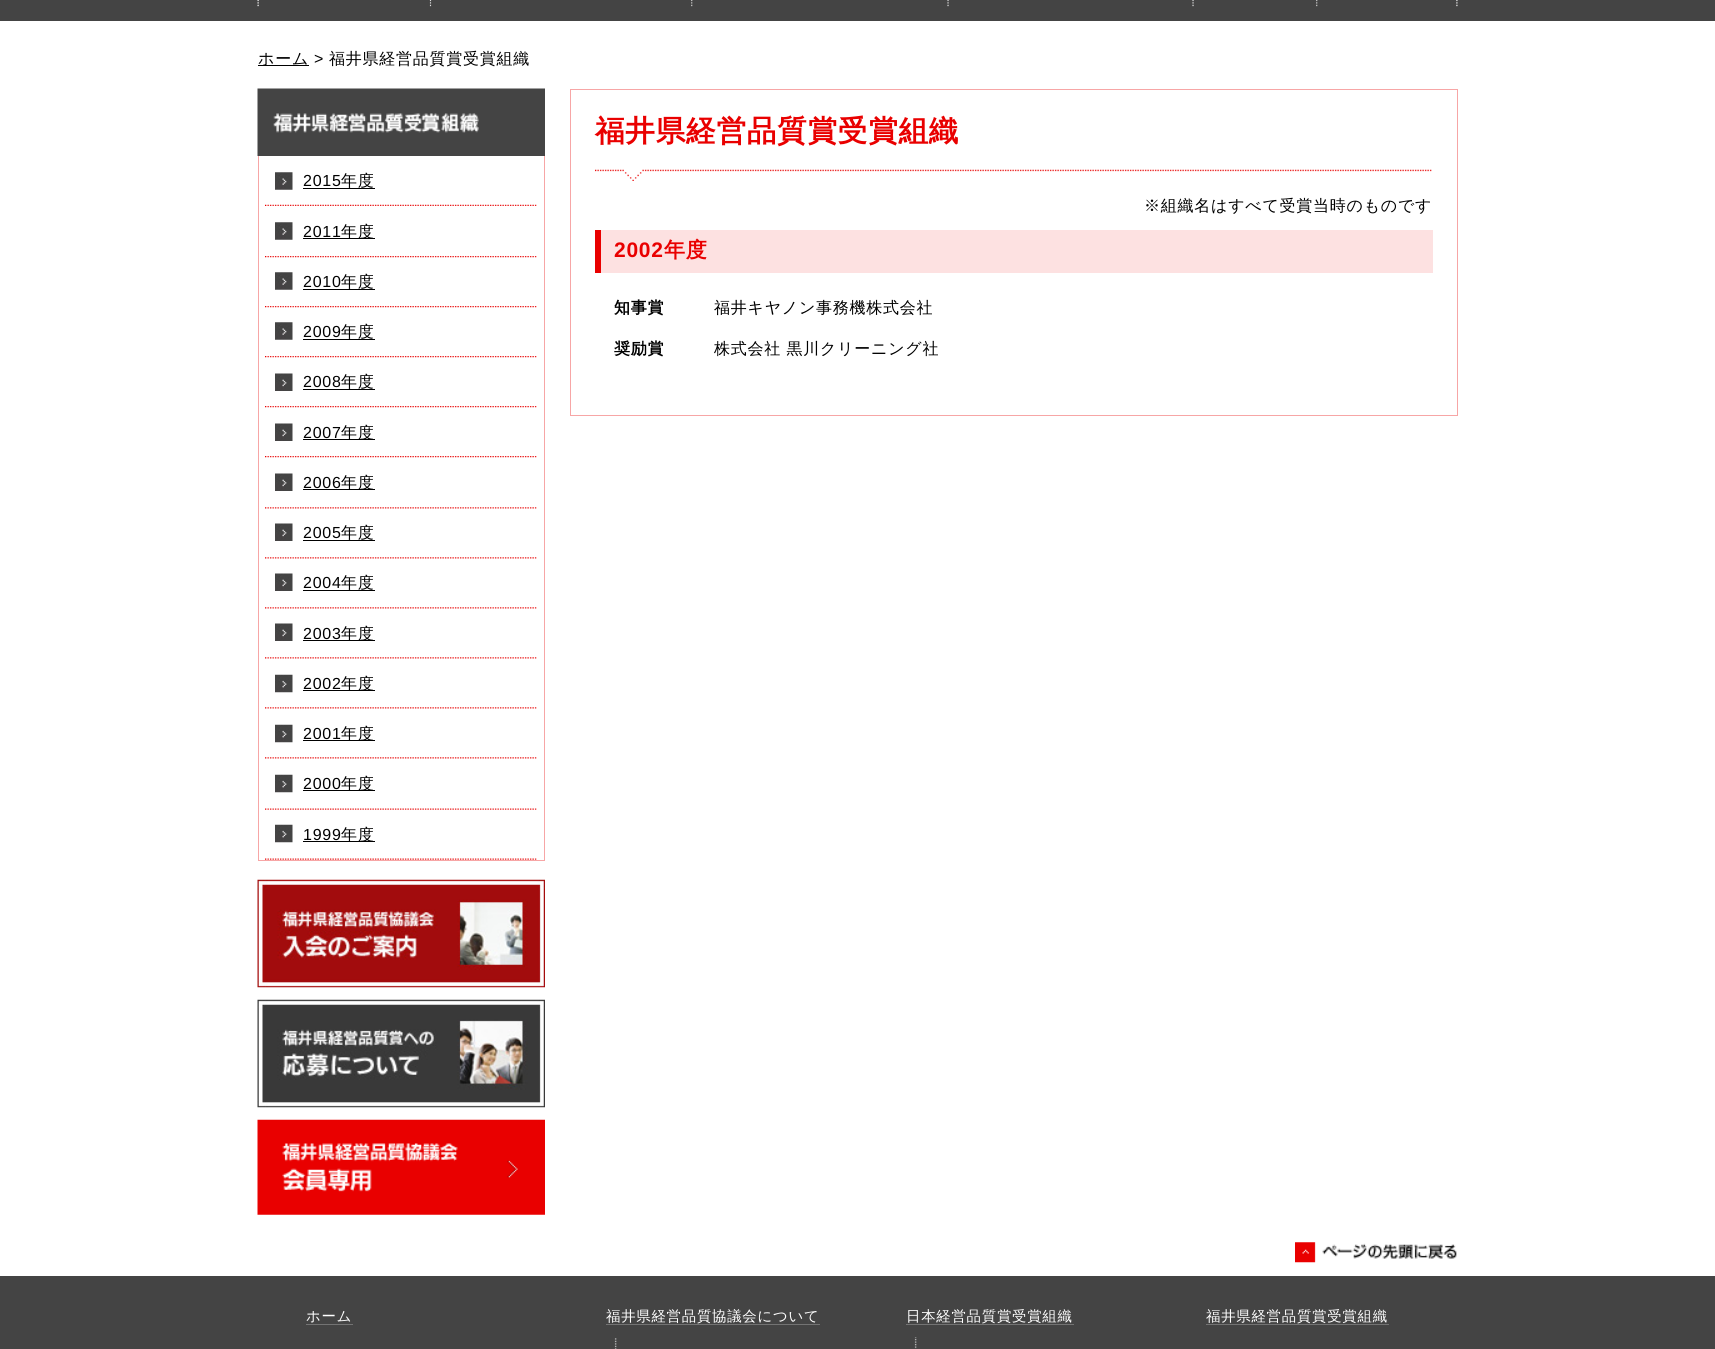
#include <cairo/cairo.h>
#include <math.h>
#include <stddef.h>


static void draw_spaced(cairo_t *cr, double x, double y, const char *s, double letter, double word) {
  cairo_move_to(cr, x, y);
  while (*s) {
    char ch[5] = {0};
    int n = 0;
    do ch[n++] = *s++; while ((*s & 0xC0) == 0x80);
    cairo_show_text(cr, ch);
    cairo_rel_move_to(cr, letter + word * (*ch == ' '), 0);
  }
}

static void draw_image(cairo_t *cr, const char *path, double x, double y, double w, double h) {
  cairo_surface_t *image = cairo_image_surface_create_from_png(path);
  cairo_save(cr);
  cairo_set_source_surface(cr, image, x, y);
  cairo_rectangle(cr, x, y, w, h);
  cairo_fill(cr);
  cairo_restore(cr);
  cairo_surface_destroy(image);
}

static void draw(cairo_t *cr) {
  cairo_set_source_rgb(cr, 1, 1, 1);
  cairo_paint(cr);
  cairo_set_source_rgb(cr, 68 / 255.0, 68 / 255.0, 68 / 255.0);
  cairo_rectangle(cr, 0, 0, 1715, 21);
  cairo_fill(cr);
  draw_image(cr, "images/1.png", 257, 0, 175, 7);
  draw_image(cr, "images/2.png", 431, 0, 262, 7);
  draw_image(cr, "images/3.png", 692, 0, 257, 7);
  draw_image(cr, "images/4.png", 948, 0, 246, 7);
  draw_image(cr, "images/5.png", 1193, 0, 125, 7);
  draw_image(cr, "images/6.png", 1317, 0, 141, 7);
  cairo_set_source_rgb(cr, 0, 0, 0);
  cairo_rectangle(cr, 258, 65, 51, 1);
  cairo_fill(cr);
  draw_image(cr, "images/7.png", 257, 88, 288, 68);
  cairo_set_source_rgb(cr, 247 / 255.0, 166 / 255.0, 166 / 255.0);
  cairo_rectangle(cr, 544, 156, 1, 705);
  cairo_fill(cr);
  cairo_rectangle(cr, 258, 860, 287, 1);
  cairo_fill(cr);
  cairo_rectangle(cr, 258, 156, 1, 705);
  cairo_fill(cr);
  draw_image(cr, "images/8.png", 265, 204, 272, 2);
  draw_image(cr, "images/9.png", 275, 172, 18, 18);
  cairo_set_source_rgb(cr, 0, 0, 0);
  cairo_rectangle(cr, 303, 188, 72, 1);
  cairo_fill(cr);
  draw_image(cr, "images/10.png", 265, 256, 272, 2);
  draw_image(cr, "images/9.png", 275, 222, 18, 18);
  cairo_rectangle(cr, 303, 238, 72, 1);
  cairo_fill(cr);
  draw_image(cr, "images/10.png", 265, 306, 272, 2);
  draw_image(cr, "images/9.png", 275, 272, 18, 18);
  cairo_rectangle(cr, 303, 289, 72, 1);
  cairo_fill(cr);
  draw_image(cr, "images/10.png", 265, 356, 272, 2);
  draw_image(cr, "images/9.png", 275, 322, 18, 18);
  cairo_rectangle(cr, 303, 339, 72, 1);
  cairo_fill(cr);
  draw_image(cr, "images/10.png", 265, 406, 272, 2);
  draw_image(cr, "images/11.png", 275, 373, 18, 18);
  cairo_rectangle(cr, 303, 389, 72, 1);
  cairo_fill(cr);
  draw_image(cr, "images/10.png", 265, 456, 272, 2);
  draw_image(cr, "images/12.png", 275, 423, 18, 18);
  cairo_rectangle(cr, 303, 439, 72, 1);
  cairo_fill(cr);
  draw_image(cr, "images/13.png", 265, 507, 272, 2);
  draw_image(cr, "images/11.png", 275, 473, 18, 18);
  cairo_rectangle(cr, 303, 489, 72, 1);
  cairo_fill(cr);
  draw_image(cr, "images/13.png", 265, 557, 272, 2);
  draw_image(cr, "images/11.png", 275, 523, 18, 18);
  cairo_rectangle(cr, 303, 540, 72, 1);
  cairo_fill(cr);
  draw_image(cr, "images/13.png", 265, 607, 272, 2);
  draw_image(cr, "images/11.png", 275, 573, 18, 18);
  cairo_rectangle(cr, 303, 590, 72, 1);
  cairo_fill(cr);
  draw_image(cr, "images/13.png", 265, 657, 272, 2);
  draw_image(cr, "images/11.png", 275, 623, 18, 18);
  cairo_rectangle(cr, 303, 640, 72, 1);
  cairo_fill(cr);
  draw_image(cr, "images/13.png", 265, 707, 272, 2);
  draw_image(cr, "images/14.png", 275, 674, 18, 19);
  cairo_rectangle(cr, 303, 690, 72, 1);
  cairo_fill(cr);
  draw_image(cr, "images/13.png", 265, 757, 272, 2);
  draw_image(cr, "images/14.png", 275, 724, 18, 19);
  cairo_rectangle(cr, 303, 740, 72, 1);
  cairo_fill(cr);
  draw_image(cr, "images/15.png", 265, 808, 272, 2);
  draw_image(cr, "images/14.png", 275, 774, 18, 19);
  cairo_rectangle(cr, 303, 790, 72, 1);
  cairo_fill(cr);
  draw_image(cr, "images/15.png", 265, 858, 272, 2);
  draw_image(cr, "images/14.png", 275, 824, 18, 19);
  cairo_rectangle(cr, 303, 841, 72, 1);
  cairo_fill(cr);
  draw_image(cr, "images/16.png", 257, 879, 288, 109);
  draw_image(cr, "images/17.png", 257, 999, 288, 109);
  draw_image(cr, "images/18.png", 257, 1119, 288, 96);
  cairo_rectangle(cr, 570.5, 89.5, 887, 326);
  cairo_set_source_rgb(cr, 247 / 255.0, 166 / 255.0, 166 / 255.0);
  cairo_set_line_width(cr, 1);
  cairo_stroke(cr);
  draw_image(cr, "images/19.png", 595, 169, 837, 12);
  cairo_set_source_rgb(cr, 253 / 255.0, 225 / 255.0, 225 / 255.0);
  cairo_rectangle(cr, 601, 230, 832, 43);
  cairo_fill(cr);
  cairo_set_source_rgb(cr, 233 / 255.0, 0, 0);
  cairo_rectangle(cr, 595, 230, 6, 43);
  cairo_fill(cr);
  draw_image(cr, "images/20.png", 1295, 1242, 162, 21);
  cairo_set_source_rgb(cr, 68 / 255.0, 68 / 255.0, 68 / 255.0);
  cairo_rectangle(cr, 0, 1276, 1715, 73);
  cairo_fill(cr);
  cairo_set_source_rgb(cr, 115 / 255.0, 115 / 255.0, 115 / 255.0);
  cairo_rectangle(cr, 306, 1324, 47, 1);
  cairo_fill(cr);
  cairo_rectangle(cr, 606, 1324, 214, 1);
  cairo_fill(cr);
  draw_image(cr, "images/21.png", 614, 1338, 3, 11);
  cairo_rectangle(cr, 906, 1324, 168, 1);
  cairo_fill(cr);
  draw_image(cr, "images/22.png", 914, 1337, 3, 12);
  cairo_rectangle(cr, 1206, 1324, 183, 1);
  cairo_fill(cr);
  cairo_select_font_face(cr, "WenQuanYi Zen Hei Medium", CAIRO_FONT_SLANT_NORMAL, CAIRO_FONT_WEIGHT_NORMAL);
  cairo_set_font_size(cr, 16);
  cairo_set_source_rgb(cr, 0, 0, 0);
  draw_spaced(cr, 258, 64, "ホーム", 0.75, 0);
  cairo_select_font_face(cr, "Liberation Sans", CAIRO_FONT_SLANT_NORMAL, CAIRO_FONT_WEIGHT_NORMAL);
  draw_spaced(cr, 314, 64, ">", 0.75, 0);
  cairo_select_font_face(cr, "WenQuanYi Zen Hei Medium", CAIRO_FONT_SLANT_NORMAL, CAIRO_FONT_WEIGHT_NORMAL);
  draw_spaced(cr, 329, 64, "福井県経営品質賞受賞組織", 0.75, 0);
  cairo_select_font_face(cr, "Liberation Sans", CAIRO_FONT_SLANT_NORMAL, CAIRO_FONT_WEIGHT_NORMAL);
  draw_spaced(cr, 303, 186, "2015", 0.75, 0);
  cairo_select_font_face(cr, "WenQuanYi Zen Hei Medium", CAIRO_FONT_SLANT_NORMAL, CAIRO_FONT_WEIGHT_NORMAL);
  draw_spaced(cr, 341, 186, "年度", 0.75, 0);
  cairo_select_font_face(cr, "Liberation Sans", CAIRO_FONT_SLANT_NORMAL, CAIRO_FONT_WEIGHT_NORMAL);
  draw_spaced(cr, 303, 237, "2011", 0.75, 0);
  cairo_select_font_face(cr, "WenQuanYi Zen Hei Medium", CAIRO_FONT_SLANT_NORMAL, CAIRO_FONT_WEIGHT_NORMAL);
  draw_spaced(cr, 341, 237, "年度", 0.75, 0);
  cairo_select_font_face(cr, "Liberation Sans", CAIRO_FONT_SLANT_NORMAL, CAIRO_FONT_WEIGHT_NORMAL);
  draw_spaced(cr, 303, 287, "2010", 0.75, 0);
  cairo_select_font_face(cr, "WenQuanYi Zen Hei Medium", CAIRO_FONT_SLANT_NORMAL, CAIRO_FONT_WEIGHT_NORMAL);
  draw_spaced(cr, 341, 287, "年度", 0.75, 0);
  cairo_select_font_face(cr, "Liberation Sans", CAIRO_FONT_SLANT_NORMAL, CAIRO_FONT_WEIGHT_NORMAL);
  draw_spaced(cr, 303, 337, "2009", 0.75, 0);
  cairo_select_font_face(cr, "WenQuanYi Zen Hei Medium", CAIRO_FONT_SLANT_NORMAL, CAIRO_FONT_WEIGHT_NORMAL);
  draw_spaced(cr, 341, 337, "年度", 0.75, 0);
  cairo_select_font_face(cr, "Liberation Sans", CAIRO_FONT_SLANT_NORMAL, CAIRO_FONT_WEIGHT_NORMAL);
  draw_spaced(cr, 303, 387, "2008", 0.75, 0);
  cairo_select_font_face(cr, "WenQuanYi Zen Hei Medium", CAIRO_FONT_SLANT_NORMAL, CAIRO_FONT_WEIGHT_NORMAL);
  draw_spaced(cr, 341, 387, "年度", 0.75, 0);
  cairo_select_font_face(cr, "Liberation Sans", CAIRO_FONT_SLANT_NORMAL, CAIRO_FONT_WEIGHT_NORMAL);
  draw_spaced(cr, 303, 438, "2007", 0.75, 0);
  cairo_select_font_face(cr, "WenQuanYi Zen Hei Medium", CAIRO_FONT_SLANT_NORMAL, CAIRO_FONT_WEIGHT_NORMAL);
  draw_spaced(cr, 341, 438, "年度", 0.75, 0);
  cairo_select_font_face(cr, "Liberation Sans", CAIRO_FONT_SLANT_NORMAL, CAIRO_FONT_WEIGHT_NORMAL);
  draw_spaced(cr, 303, 488, "2006", 0.75, 0);
  cairo_select_font_face(cr, "WenQuanYi Zen Hei Medium", CAIRO_FONT_SLANT_NORMAL, CAIRO_FONT_WEIGHT_NORMAL);
  draw_spaced(cr, 341, 488, "年度", 0.75, 0);
  cairo_select_font_face(cr, "Liberation Sans", CAIRO_FONT_SLANT_NORMAL, CAIRO_FONT_WEIGHT_NORMAL);
  draw_spaced(cr, 303, 538, "2005", 0.75, 0);
  cairo_select_font_face(cr, "WenQuanYi Zen Hei Medium", CAIRO_FONT_SLANT_NORMAL, CAIRO_FONT_WEIGHT_NORMAL);
  draw_spaced(cr, 341, 538, "年度", 0.75, 0);
  cairo_select_font_face(cr, "Liberation Sans", CAIRO_FONT_SLANT_NORMAL, CAIRO_FONT_WEIGHT_NORMAL);
  draw_spaced(cr, 303, 588, "2004", 0.75, 0);
  cairo_select_font_face(cr, "WenQuanYi Zen Hei Medium", CAIRO_FONT_SLANT_NORMAL, CAIRO_FONT_WEIGHT_NORMAL);
  draw_spaced(cr, 341, 588, "年度", 0.75, 0);
  cairo_select_font_face(cr, "Liberation Sans", CAIRO_FONT_SLANT_NORMAL, CAIRO_FONT_WEIGHT_NORMAL);
  draw_spaced(cr, 303, 639, "2003", 0.75, 0);
  cairo_select_font_face(cr, "WenQuanYi Zen Hei Medium", CAIRO_FONT_SLANT_NORMAL, CAIRO_FONT_WEIGHT_NORMAL);
  draw_spaced(cr, 341, 639, "年度", 0.75, 0);
  cairo_select_font_face(cr, "Liberation Sans", CAIRO_FONT_SLANT_NORMAL, CAIRO_FONT_WEIGHT_NORMAL);
  draw_spaced(cr, 303, 689, "2002", 0.75, 0);
  cairo_select_font_face(cr, "WenQuanYi Zen Hei Medium", CAIRO_FONT_SLANT_NORMAL, CAIRO_FONT_WEIGHT_NORMAL);
  draw_spaced(cr, 341, 689, "年度", 0.75, 0);
  cairo_select_font_face(cr, "Liberation Sans", CAIRO_FONT_SLANT_NORMAL, CAIRO_FONT_WEIGHT_NORMAL);
  draw_spaced(cr, 303, 739, "2001", 0.75, 0);
  cairo_select_font_face(cr, "WenQuanYi Zen Hei Medium", CAIRO_FONT_SLANT_NORMAL, CAIRO_FONT_WEIGHT_NORMAL);
  draw_spaced(cr, 341, 739, "年度", 0.75, 0);
  cairo_select_font_face(cr, "Liberation Sans", CAIRO_FONT_SLANT_NORMAL, CAIRO_FONT_WEIGHT_NORMAL);
  draw_spaced(cr, 303, 789, "2000", 0.75, 0);
  cairo_select_font_face(cr, "WenQuanYi Zen Hei Medium", CAIRO_FONT_SLANT_NORMAL, CAIRO_FONT_WEIGHT_NORMAL);
  draw_spaced(cr, 341, 789, "年度", 0.75, 0);
  cairo_select_font_face(cr, "Liberation Sans", CAIRO_FONT_SLANT_NORMAL, CAIRO_FONT_WEIGHT_NORMAL);
  draw_spaced(cr, 303, 840, "1999", 0.75, 0);
  cairo_select_font_face(cr, "WenQuanYi Zen Hei Medium", CAIRO_FONT_SLANT_NORMAL, CAIRO_FONT_WEIGHT_NORMAL);
  draw_spaced(cr, 341, 840, "年度", 0.75, 0);
  cairo_select_font_face(cr, "WenQuanYi Zen Hei", CAIRO_FONT_SLANT_NORMAL, CAIRO_FONT_WEIGHT_BOLD);
  cairo_set_font_size(cr, 29.6);
  cairo_set_source_rgb(cr, 233 / 255.0, 0, 0);
  draw_spaced(cr, 595, 141, "福井県経営品質賞受賞組織", 0.75, 0);
  cairo_select_font_face(cr, "WenQuanYi Zen Hei Medium", CAIRO_FONT_SLANT_NORMAL, CAIRO_FONT_WEIGHT_NORMAL);
  cairo_set_font_size(cr, 16);
  cairo_set_source_rgb(cr, 0, 0, 0);
  draw_spaced(cr, 1144, 211, "※組織名はすべて受賞当時のものです", 0.75, 0);
  cairo_select_font_face(cr, "Liberation Sans", CAIRO_FONT_SLANT_NORMAL, CAIRO_FONT_WEIGHT_BOLD);
  cairo_set_font_size(cr, 21);
  cairo_set_source_rgb(cr, 233 / 255.0, 0, 0);
  draw_spaced(cr, 614, 257, "2002", 0.75, 0);
  cairo_select_font_face(cr, "WenQuanYi Zen Hei", CAIRO_FONT_SLANT_NORMAL, CAIRO_FONT_WEIGHT_BOLD);
  draw_spaced(cr, 664, 257, "年度", 0.75, 0);
  cairo_set_font_size(cr, 16);
  cairo_set_source_rgb(cr, 0, 0, 0);
  draw_spaced(cr, 614, 313, "知事賞", 0.75, 0);
  cairo_select_font_face(cr, "WenQuanYi Zen Hei Medium", CAIRO_FONT_SLANT_NORMAL, CAIRO_FONT_WEIGHT_NORMAL);
  draw_spaced(cr, 714, 313, "福井キヤノン事務機株式会社", 0.75, 0);
  cairo_select_font_face(cr, "WenQuanYi Zen Hei", CAIRO_FONT_SLANT_NORMAL, CAIRO_FONT_WEIGHT_BOLD);
  draw_spaced(cr, 614, 354, "奨励賞", 0.75, 0);
  cairo_select_font_face(cr, "WenQuanYi Zen Hei Medium", CAIRO_FONT_SLANT_NORMAL, CAIRO_FONT_WEIGHT_NORMAL);
  draw_spaced(cr, 714, 354, "株式会社 黒川クリーニング社", 0.75, 0);
  cairo_set_font_size(cr, 14.4);
  cairo_set_source_rgb(cr, 1, 1, 1);
  draw_spaced(cr, 306, 1321, "ホーム", 0.75, 0);
  draw_spaced(cr, 606, 1321, "福井県経営品質協議会について", 0.75, 0);
  draw_spaced(cr, 906, 1321, "日本経営品質賞受賞組織", 0.75, 0);
  draw_spaced(cr, 1206, 1321, "福井県経営品質賞受賞組織", 0.75, 0);
}

int main(void) {
  cairo_surface_t *surface = cairo_image_surface_create(CAIRO_FORMAT_RGB24, 1715, 1349);
  cairo_t *cr = cairo_create(surface);
  cairo_font_options_t *options = cairo_font_options_create();
  cairo_font_options_set_hint_metrics(options, CAIRO_HINT_METRICS_OFF);
  cairo_font_options_set_hint_style(options, CAIRO_HINT_STYLE_NONE);
  cairo_set_font_options(cr, options);
  cairo_set_miter_limit(cr, 4);
  draw(cr);
  cairo_surface_write_to_png(surface, "out.png");
  cairo_font_options_destroy(options);
  cairo_destroy(cr);
  cairo_surface_destroy(surface);
  return 0;
}
